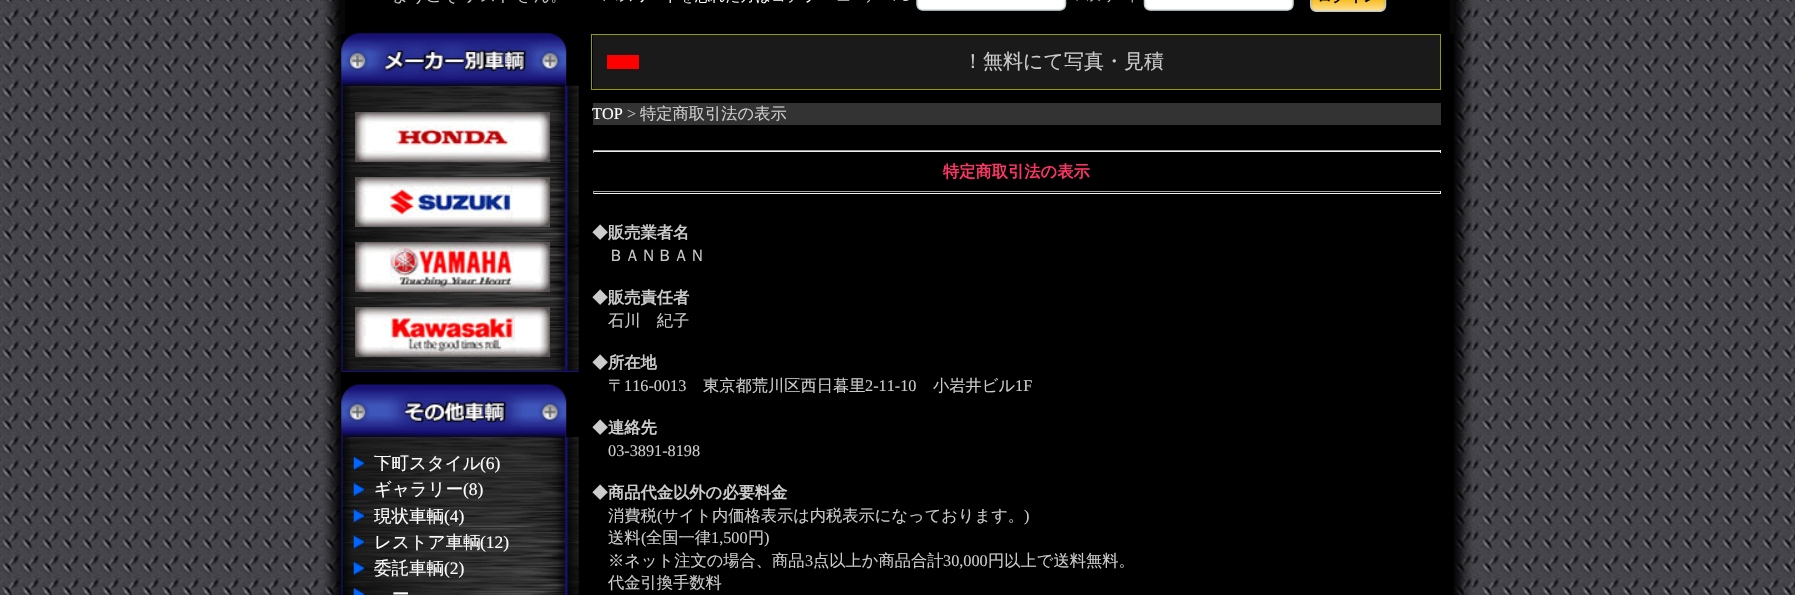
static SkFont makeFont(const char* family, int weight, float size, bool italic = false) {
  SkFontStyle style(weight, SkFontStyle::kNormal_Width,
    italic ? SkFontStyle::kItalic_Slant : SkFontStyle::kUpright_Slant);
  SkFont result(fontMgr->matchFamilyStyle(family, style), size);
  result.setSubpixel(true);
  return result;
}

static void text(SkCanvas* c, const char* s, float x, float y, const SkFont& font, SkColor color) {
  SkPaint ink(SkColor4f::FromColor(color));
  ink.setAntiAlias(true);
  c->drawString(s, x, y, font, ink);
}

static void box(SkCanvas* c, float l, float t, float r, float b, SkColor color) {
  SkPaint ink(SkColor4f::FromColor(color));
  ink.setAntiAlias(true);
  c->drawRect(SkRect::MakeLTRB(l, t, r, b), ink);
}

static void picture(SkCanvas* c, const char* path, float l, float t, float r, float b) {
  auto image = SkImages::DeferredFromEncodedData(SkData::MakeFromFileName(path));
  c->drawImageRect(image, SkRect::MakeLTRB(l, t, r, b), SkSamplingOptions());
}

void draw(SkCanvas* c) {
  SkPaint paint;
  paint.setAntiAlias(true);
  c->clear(0xffffffff);
  picture(c, "img_01.png", 0, 0, 1795, 595);
  picture(c, "img_02.png", 322, 0, 1473, 595);
  picture(c, "img_03.png", 394, 0, 1387, 12);
  box(c, 341, 34, 1454, 595, 0xff000000);
  picture(c, "img_05.png", 341, 85, 579, 371);
  picture(c, "img_04.png", 341, 33, 567, 86);
  picture(c, "img_06.png", 355, 112, 550, 162);
  picture(c, "img_07.png", 355, 177, 550, 227);
  picture(c, "img_08.png", 355, 242, 550, 292);
  picture(c, "img_09.png", 355, 307, 550, 357);
  picture(c, "img_10.png", 341, 370, 579, 372);
  picture(c, "img_11.png", 341, 384, 567, 437);
  picture(c, "img_12.png", 341, 437, 579, 595);
  picture(c, "img_13.png", 353, 457, 365, 470);
  SkFont face1 = makeFont("WenQuanYi Zen Hei", 500, 17.5f);
  text(c, "下町スタイル", 374, 469, face1, 0xffffffff);
  SkFont face2 = makeFont("Liberation Serif", 400, 17.5f);
  text(c, "(6)", 480, 469, face2, 0xffffffff);
  picture(c, "img_14.png", 353, 483, 365, 496);
  text(c, "ギャラリー", 374, 495, face1, 0xffffffff);
  text(c, "(8)", 463, 495, face2, 0xffffffff);
  picture(c, "img_15.png", 353, 509, 365, 522);
  text(c, "現状車輌", 374, 522, face1, 0xffffffff);
  text(c, "(4)", 444, 522, face2, 0xffffffff);
  picture(c, "img_16.png", 353, 535, 365, 549);
  text(c, "レストア車輌", 374, 548, face1, 0xffffffff);
  text(c, "(12)", 480, 548, face2, 0xffffffff);
  picture(c, "img_17.png", 353, 562, 365, 575);
  text(c, "委託車輌", 374, 574, face1, 0xffffffff);
  text(c, "(2)", 444, 574, face2, 0xffffffff);
  picture(c, "img_18.png", 353, 588, 365, 595);
  text(c, "ー", 392, 600, face1, 0xffffffff);
  box(c, 593, 35, 1440, 89, 0xff1a1a1a);
  box(c, 591, 34, 1441, 35, 0xff989800);
  box(c, 1440, 34, 1441, 90, 0xff989800);
  box(c, 591, 89, 1441, 90, 0xff989800);
  box(c, 591, 34, 592, 90, 0xff989800);
  box(c, 607, 55, 639, 69, 0xffff0000);
  SkFont face3 = makeFont("WenQuanYi Zen Hei", 500, 20);
  text(c, "！無料にて写真・見積", 963, 68, face3, 0xffcccccc);
  box(c, 593, 103, 1441, 125, 0xff333333);
  SkFont face4 = makeFont("Liberation Serif", 400, 16.25f);
  text(c, "TOP", 592, 119, face4, 0xffffffff);
  text(c, ">", 627, 119, face4, 0xffcccccc);
  SkFont face5 = makeFont("WenQuanYi Zen Hei", 500, 16.25f);
  text(c, "特定商取引法の表示", 640, 119, face5, 0xffcccccc);
  box(c, 593, 150, 1441, 151, 0xff9f9f9f);
  box(c, 1440, 150, 1441, 153, 0xffeeeeee);
  box(c, 593, 151, 1441, 152, 0xffeeeeee);
  box(c, 593, 150, 594, 153, 0xff9f9f9f);
  SkFont face6 = makeFont("WenQuanYi Zen Hei", 700, 16.25f);
  text(c, "特定商取引法の表示", 943, 177, face6, 0xffff3366);
  box(c, 593, 191, 1441, 192, 0xff9f9f9f);
  box(c, 1440, 191, 1441, 194, 0xffeeeeee);
  box(c, 593, 193, 1441, 194, 0xffeeeeee);
  box(c, 593, 191, 594, 194, 0xff9f9f9f);
  text(c, "◆", 592, 238, face5, 0xffcccccc);
  text(c, "販売業者名", 608, 238, face6, 0xffcccccc);
  text(c, "ＢＡＮＢＡＮ", 608, 261, face5, 0xffcccccc);
  text(c, "◆", 592, 303, face5, 0xffcccccc);
  text(c, "販売責任者", 608, 303, face6, 0xffcccccc);
  text(c, "石川　紀子", 608, 326, face5, 0xffcccccc);
  text(c, "◆", 592, 368, face5, 0xffcccccc);
  text(c, "所在地", 608, 368, face6, 0xffcccccc);
  text(c, "〒", 608, 391, face5, 0xffcccccc);
  text(c, "116-0013", 624, 391, face4, 0xffcccccc);
  text(c, "東京都荒川区西日暮里", 703, 391, face5, 0xffcccccc);
  text(c, "2-11-10", 865, 391, face4, 0xffcccccc);
  text(c, "小岩井ビル", 933, 391, face5, 0xffcccccc);
  text(c, "1F", 1015, 391, face4, 0xffcccccc);
  text(c, "◆", 592, 433, face5, 0xffcccccc);
  text(c, "連絡先", 608, 433, face6, 0xffcccccc);
  text(c, "03-3891-8198", 608, 456, face4, 0xffcccccc);
  text(c, "◆", 592, 498, face5, 0xffcccccc);
  text(c, "商品代金以外の必要料金", 608, 498, face6, 0xffcccccc);
  text(c, "消費税", 608, 521, face5, 0xffcccccc);
  text(c, "(", 657, 521, face4, 0xffcccccc);
  text(c, "サイト内価格表示は内税表示になっております。", 662, 521, face5, 0xffcccccc);
  text(c, ")", 1024, 521, face4, 0xffcccccc);
  text(c, "送料", 608, 543, face5, 0xffcccccc);
  text(c, "(", 641, 543, face4, 0xffcccccc);
  text(c, "全国一律", 646, 543, face5, 0xffcccccc);
  text(c, "1,500", 711, 543, face4, 0xffcccccc);
  text(c, "円", 748, 543, face5, 0xffcccccc);
  text(c, ")", 764, 543, face4, 0xffcccccc);
  text(c, "※ネット注文の場合、商品", 608, 566, face5, 0xffcccccc);
  text(c, "3", 805, 566, face4, 0xffcccccc);
  text(c, "点以上か商品合計", 813, 566, face5, 0xffcccccc);
  text(c, "30,000", 943, 566, face4, 0xffcccccc);
  text(c, "円以上で送料無料。", 988, 566, face5, 0xffcccccc);
  text(c, "代金引換手数料", 608, 588, face5, 0xffcccccc);
}
